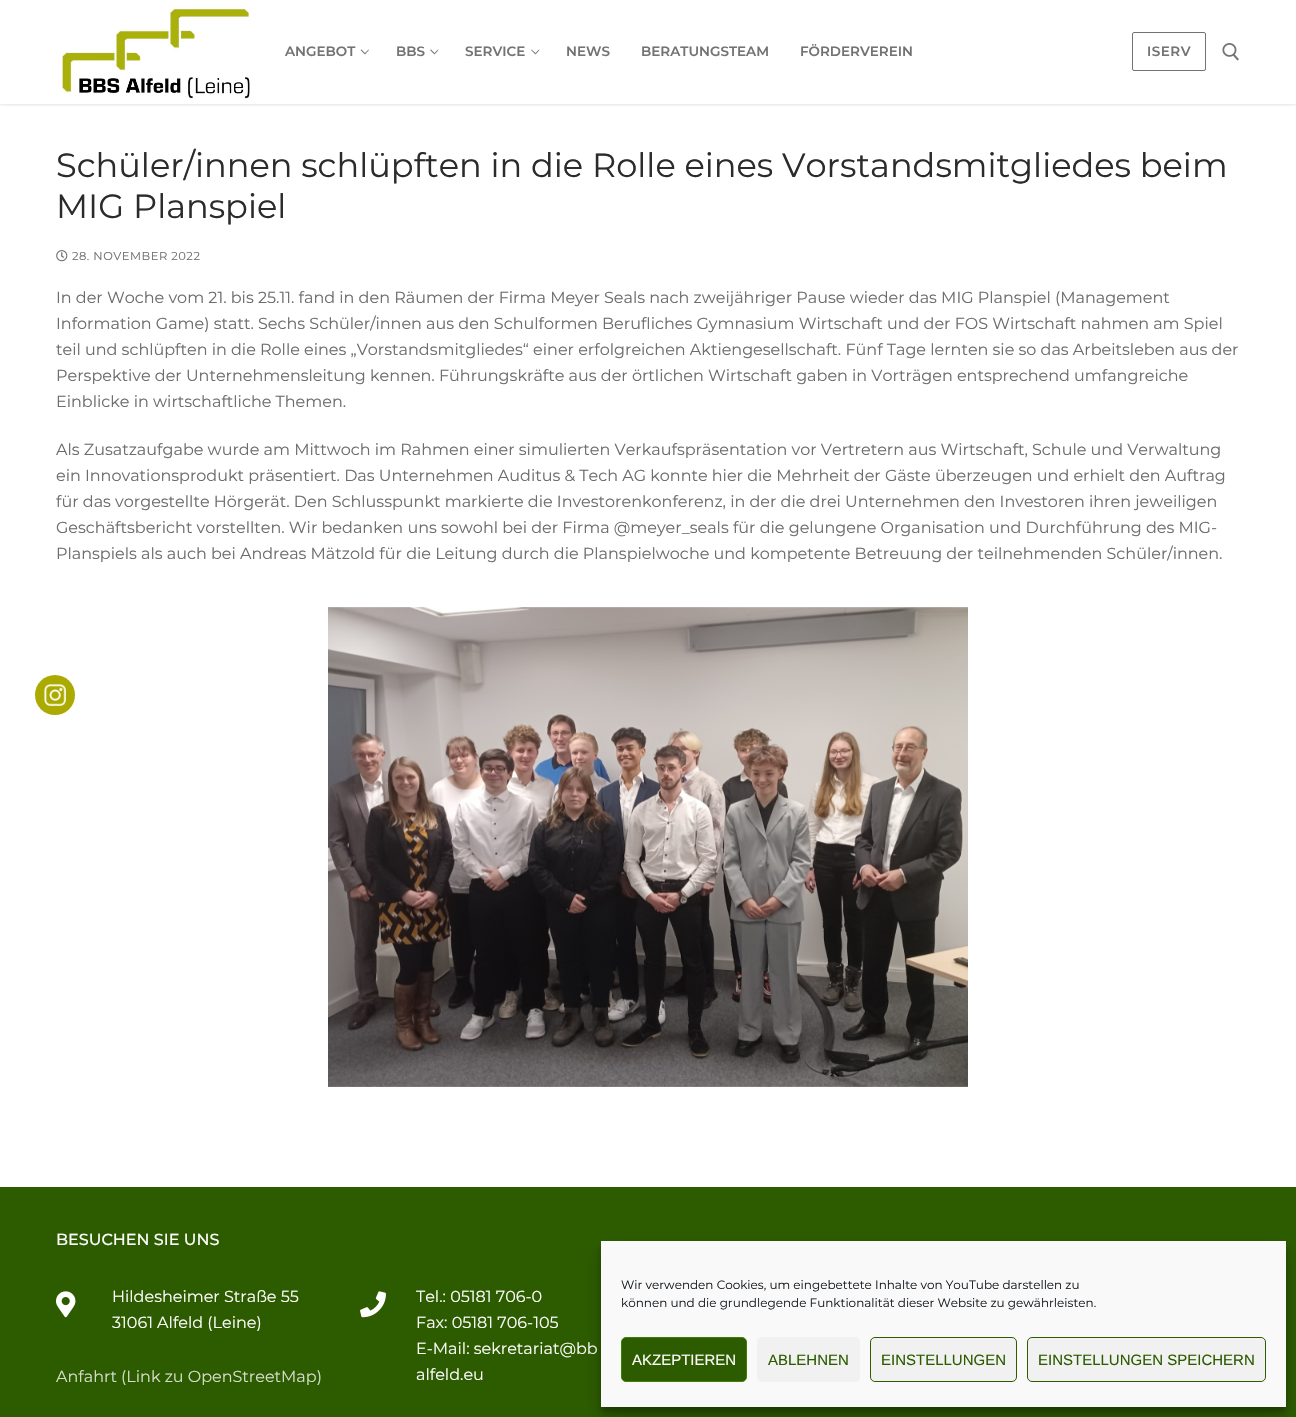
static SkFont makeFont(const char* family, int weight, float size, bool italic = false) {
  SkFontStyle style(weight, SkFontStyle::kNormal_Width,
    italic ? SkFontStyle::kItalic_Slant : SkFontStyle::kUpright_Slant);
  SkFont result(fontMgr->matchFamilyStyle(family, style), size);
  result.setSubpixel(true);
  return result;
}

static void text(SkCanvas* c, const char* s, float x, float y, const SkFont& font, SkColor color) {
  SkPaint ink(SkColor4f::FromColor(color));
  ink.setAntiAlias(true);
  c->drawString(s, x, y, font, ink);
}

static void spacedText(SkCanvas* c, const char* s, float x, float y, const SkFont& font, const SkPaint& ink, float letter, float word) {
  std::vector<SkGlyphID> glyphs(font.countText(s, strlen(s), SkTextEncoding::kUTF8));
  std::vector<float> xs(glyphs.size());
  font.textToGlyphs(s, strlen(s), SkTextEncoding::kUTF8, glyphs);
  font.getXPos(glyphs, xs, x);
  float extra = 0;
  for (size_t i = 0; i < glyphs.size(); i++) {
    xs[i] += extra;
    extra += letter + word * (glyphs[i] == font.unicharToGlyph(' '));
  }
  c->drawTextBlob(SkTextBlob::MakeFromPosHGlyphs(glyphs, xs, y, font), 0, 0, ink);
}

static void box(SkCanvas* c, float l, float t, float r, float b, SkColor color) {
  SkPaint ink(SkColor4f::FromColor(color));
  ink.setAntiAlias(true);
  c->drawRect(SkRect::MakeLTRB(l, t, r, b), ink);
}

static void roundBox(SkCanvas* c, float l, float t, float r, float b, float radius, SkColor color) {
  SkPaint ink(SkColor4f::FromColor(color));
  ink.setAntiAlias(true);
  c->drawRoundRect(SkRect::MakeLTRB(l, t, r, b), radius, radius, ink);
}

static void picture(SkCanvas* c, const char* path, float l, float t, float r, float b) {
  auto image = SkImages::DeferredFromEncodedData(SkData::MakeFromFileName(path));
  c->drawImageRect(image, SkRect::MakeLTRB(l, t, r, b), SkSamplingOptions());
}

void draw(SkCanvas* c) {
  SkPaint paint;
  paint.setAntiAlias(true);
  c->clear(0xffffffff);
  paint.setColor(0xffabaa00);
  c->drawCircle(55, 695, 20, paint);
  picture(c, "img_01.png", 44, 684, 66, 706);
  c->save();
  c->clipRect(SkRect::MakeLTRB(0, 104, 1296, 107));
  paint.setColor(0xffe1e5ea);
  paint.setMaskFilter(SkMaskFilter::MakeBlur(kNormal_SkBlurStyle, 1));
  c->drawRect(SkRect::MakeLTRB(0, 1, 1296, 105), paint);
  paint.setMaskFilter(nullptr);
  c->restore();
  picture(c, "img_02.png", 60, 5, 251, 99);
  SkFont face1 = makeFont("Montserrat", 600, 13.5f);
  text(c, "ANGEBOT", 285, 56, face1, 0xff737373);
  paint.setColor(0xff737373);
  c->drawPath(SkPathBuilder().moveTo(365, 54.5f).lineTo(360.5f, 50).lineTo(361.5f, 49.5f).lineTo(365, 53).close().moveTo(369, 50).lineTo(365, 54.5f).lineTo(365, 53).lineTo(368.5f, 49.5f).close().detach(), paint);
  text(c, "BBS", 396, 56, face1, 0xff737373);
  c->drawPath(SkPathBuilder().moveTo(434.5f, 54.5f).lineTo(430, 50).lineTo(431, 49.5f).lineTo(434.5f, 53).close().detach(), paint);
  paint.setColor(0x8c000000);
  c->drawPath(SkPathBuilder().moveTo(438.5f, 50).lineTo(434.5f, 54.5f).lineTo(434.5f, 53).lineTo(438, 49.5f).close().detach(), paint);
  text(c, "SERVICE", 465, 56, face1, 0xff737373);
  paint.setColor(0xff737373);
  c->drawPath(SkPathBuilder().moveTo(535.5f, 54.5f).lineTo(531, 50).lineTo(531.5f, 49.5f).lineTo(535.5f, 53).close().detach(), paint);
  paint.setColor(0x8c000000);
  c->drawPath(SkPathBuilder().moveTo(539.5f, 50).lineTo(535.5f, 54.5f).lineTo(535.5f, 53).lineTo(539, 49.5f).close().detach(), paint);
  text(c, "NEWS", 566, 56, face1, 0xff737373);
  text(c, "BERATUNGSTEAM", 641, 56, face1, 0xff737373);
  text(c, "FÖRDERVEREIN", 800, 56, face1, 0xff737373);
  paint.setStyle(SkPaint::kStroke_Style);
  paint.setStrokeWidth(1);
  paint.setColor(0xff737373);
  c->drawRoundRect(SkRect::MakeLTRB(1132.5f, 32.5f, 1205.5f, 70.5f), 1.5f, 1.5f, paint);
  paint.setStyle(SkPaint::kFill_Style);
  spacedText(c, "ISERV", 1147, 56, face1, paint, 0.5f, 0);
  picture(c, "img_03.png", 1222, 43, 1239, 61);
  SkFont face2 = makeFont("Montserrat", 400, 33.6f);
  text(c, "Schüler/innen schlüpften in die Rolle eines Vorstandsmitgliedes beim", 56, 177, face2, 0xff2b2b2b);
  text(c, "MIG Planspiel", 56, 218, face2, 0xff2b2b2b);
  picture(c, "img_04.png", 56, 250, 68, 262);
  SkFont face3 = makeFont("Montserrat", 400, 11.5f);
  paint.setColor(0xff6d6d6d);
  spacedText(c, "28. NOVEMBER 2022", 72, 260, face3, paint, 0.5f, 0);
  SkFont face4 = makeFont("Montserrat", 400, 16);
  text(c, "In der Woche vom 21. bis 25.11. fand in den Räumen der Firma Meyer Seals nach zweijähriger Pause wieder das MIG Planspiel (Management", 56, 303, face4, 0xff6d6d6d);
  text(c, "Information Game) statt. Sechs Schüler/innen aus den Schulformen Berufliches Gymnasium Wirtschaft und der FOS Wirtschaft nahmen am Spiel", 56, 329, face4, 0xff6d6d6d);
  text(c, "teil und schlüpften in die Rolle eines „Vorstandsmitgliedes“ einer erfolgreichen Aktiengesellschaft. Fünf Tage lernten sie so das Arbeitsleben aus der", 56, 355, face4, 0xff6d6d6d);
  text(c, "Perspektive der Unternehmensleitung kennen. Führungskräfte aus der örtlichen Wirtschaft gaben in Vorträgen entsprechend umfangreiche", 56, 381, face4, 0xff6d6d6d);
  text(c, "Einblicke in wirtschaftliche Themen.", 56, 407, face4, 0xff6d6d6d);
  text(c, "Als Zusatzaufgabe wurde am Mittwoch im Rahmen einer simulierten Verkaufspräsentation vor Vertretern aus Wirtschaft, Schule und Verwaltung", 56, 455, face4, 0xff6d6d6d);
  text(c, "ein Innovationsprodukt präsentiert. Das Unternehmen Auditus & Tech AG konnte hier die Mehrheit der Gäste überzeugen und erhielt den Auftrag", 56, 481, face4, 0xff6d6d6d);
  text(c, "für das vorgestellte Hörgerät. Den Schlusspunkt markierte die Investorenkonferenz, in der die drei Unternehmen den Investoren ihren jeweiligen", 56, 507, face4, 0xff6d6d6d);
  text(c, "Geschäftsbericht vorstellten. Wir bedanken uns sowohl bei der Firma @meyer_seals für die gelungene Organisation und Durchführung des MIG-", 56, 533, face4, 0xff6d6d6d);
  text(c, "Planspiels als auch bei Andreas Mätzold für die Leitung durch die Planspielwoche und kompetente Betreuung der teilnehmenden Schüler/innen.", 56, 559, face4, 0xff6d6d6d);
  picture(c, "img_05.png", 328, 607, 968, 1087);
  box(c, 0, 1187, 1296, 1417, 0xff2d5c00);
  SkFont face5 = makeFont("Montserrat", 500, 16);
  text(c, "BESUCHEN SIE UNS", 56, 1245, face5, 0xfffdfdfc);
  picture(c, "img_06.png", 56, 1291, 76, 1318);
  text(c, "Hildesheimer Straße 55", 112, 1302, face4, 0xfffdfdfc);
  text(c, "31061 Alfeld (Leine)", 112, 1328, face4, 0xfffdfdfc);
  text(c, "Anfahrt (Link zu OpenStreetMap)", 56, 1382, face4, 0xffd3ddc9);
  picture(c, "img_07.png", 360, 1291, 386, 1318);
  text(c, "Tel.: 05181 706-0", 416, 1302, face4, 0xfffdfdfc);
  text(c, "Fax: 05181 706-105", 416, 1328, face4, 0xfffdfdfc);
  text(c, "E-Mail: sekretariat@bb", 416, 1354, face4, 0xfffdfdfc);
  text(c, "alfeld.eu", 416, 1380, face4, 0xfffdfdfc);
  paint.setColor(0x3b000000);
  paint.setMaskFilter(SkMaskFilter::MakeBlur(kNormal_SkBlurStyle, 3));
  c->drawRect(SkRect::MakeLTRB(601, 1247, 1286, 1413), paint);
  paint.setMaskFilter(nullptr);
  paint.setColor(0x30000000);
  paint.setMaskFilter(SkMaskFilter::MakeBlur(kNormal_SkBlurStyle, 10));
  c->drawRect(SkRect::MakeLTRB(601, 1251, 1286, 1417), paint);
  paint.setMaskFilter(nullptr);
  box(c, 601, 1241, 1286, 1407, 0xfff9f9f9);
  SkFont face6 = makeFont("Montserrat", 400, 12);
  text(c, "Wir verwenden Cookies, um eingebettete Inhalte von YouTube darstellen zu", 621, 1289, face6, 0xff191e23);
  text(c, "können und die grundlegende Funktionalität dieser Website zu gewährleisten.", 621, 1307, face6, 0xff191e23);
  paint.setColor(0xff2d5c00);
  c->drawRoundRect(SkRect::MakeLTRB(621.5f, 1337.5f, 746.5f, 1381.5f), 4.5f, 4.5f, paint);
  paint.setStyle(SkPaint::kStroke_Style);
  paint.setColor(0xff407e04);
  c->drawRoundRect(SkRect::MakeLTRB(621.5f, 1337.5f, 746.5f, 1381.5f), 4.5f, 4.5f, paint);
  SkFont face7 = makeFont("Liberation Sans", 400, 15);
  text(c, "AKZEPTIEREN", 632, 1365, face7, 0xfffdfdfc);
  roundBox(c, 757, 1337, 860, 1382, 5, 0xfff1f1f1);
  text(c, "ABLEHNEN", 768, 1365, face7, 0xff2d5c00);
  paint.setStyle(SkPaint::kFill_Style);
  paint.setColor(0xfff1f1f1);
  c->drawRoundRect(SkRect::MakeLTRB(870.5f, 1337.5f, 1016.5f, 1381.5f), 4.5f, 4.5f, paint);
  paint.setStyle(SkPaint::kStroke_Style);
  paint.setColor(0xff2d5c00);
  c->drawRoundRect(SkRect::MakeLTRB(870.5f, 1337.5f, 1016.5f, 1381.5f), 4.5f, 4.5f, paint);
  text(c, "EINSTELLUNGEN", 881, 1365, face7, 0xff2d5c00);
  paint.setStyle(SkPaint::kFill_Style);
  paint.setColor(0xfff1f1f1);
  c->drawRoundRect(SkRect::MakeLTRB(1027.5f, 1337.5f, 1265.5f, 1381.5f), 4.5f, 4.5f, paint);
  paint.setStyle(SkPaint::kStroke_Style);
  paint.setColor(0xff2d5c00);
  c->drawRoundRect(SkRect::MakeLTRB(1027.5f, 1337.5f, 1265.5f, 1381.5f), 4.5f, 4.5f, paint);
  text(c, "EINSTELLUNGEN SPEICHERN", 1038, 1365, face7, 0xff2d5c00);
}
